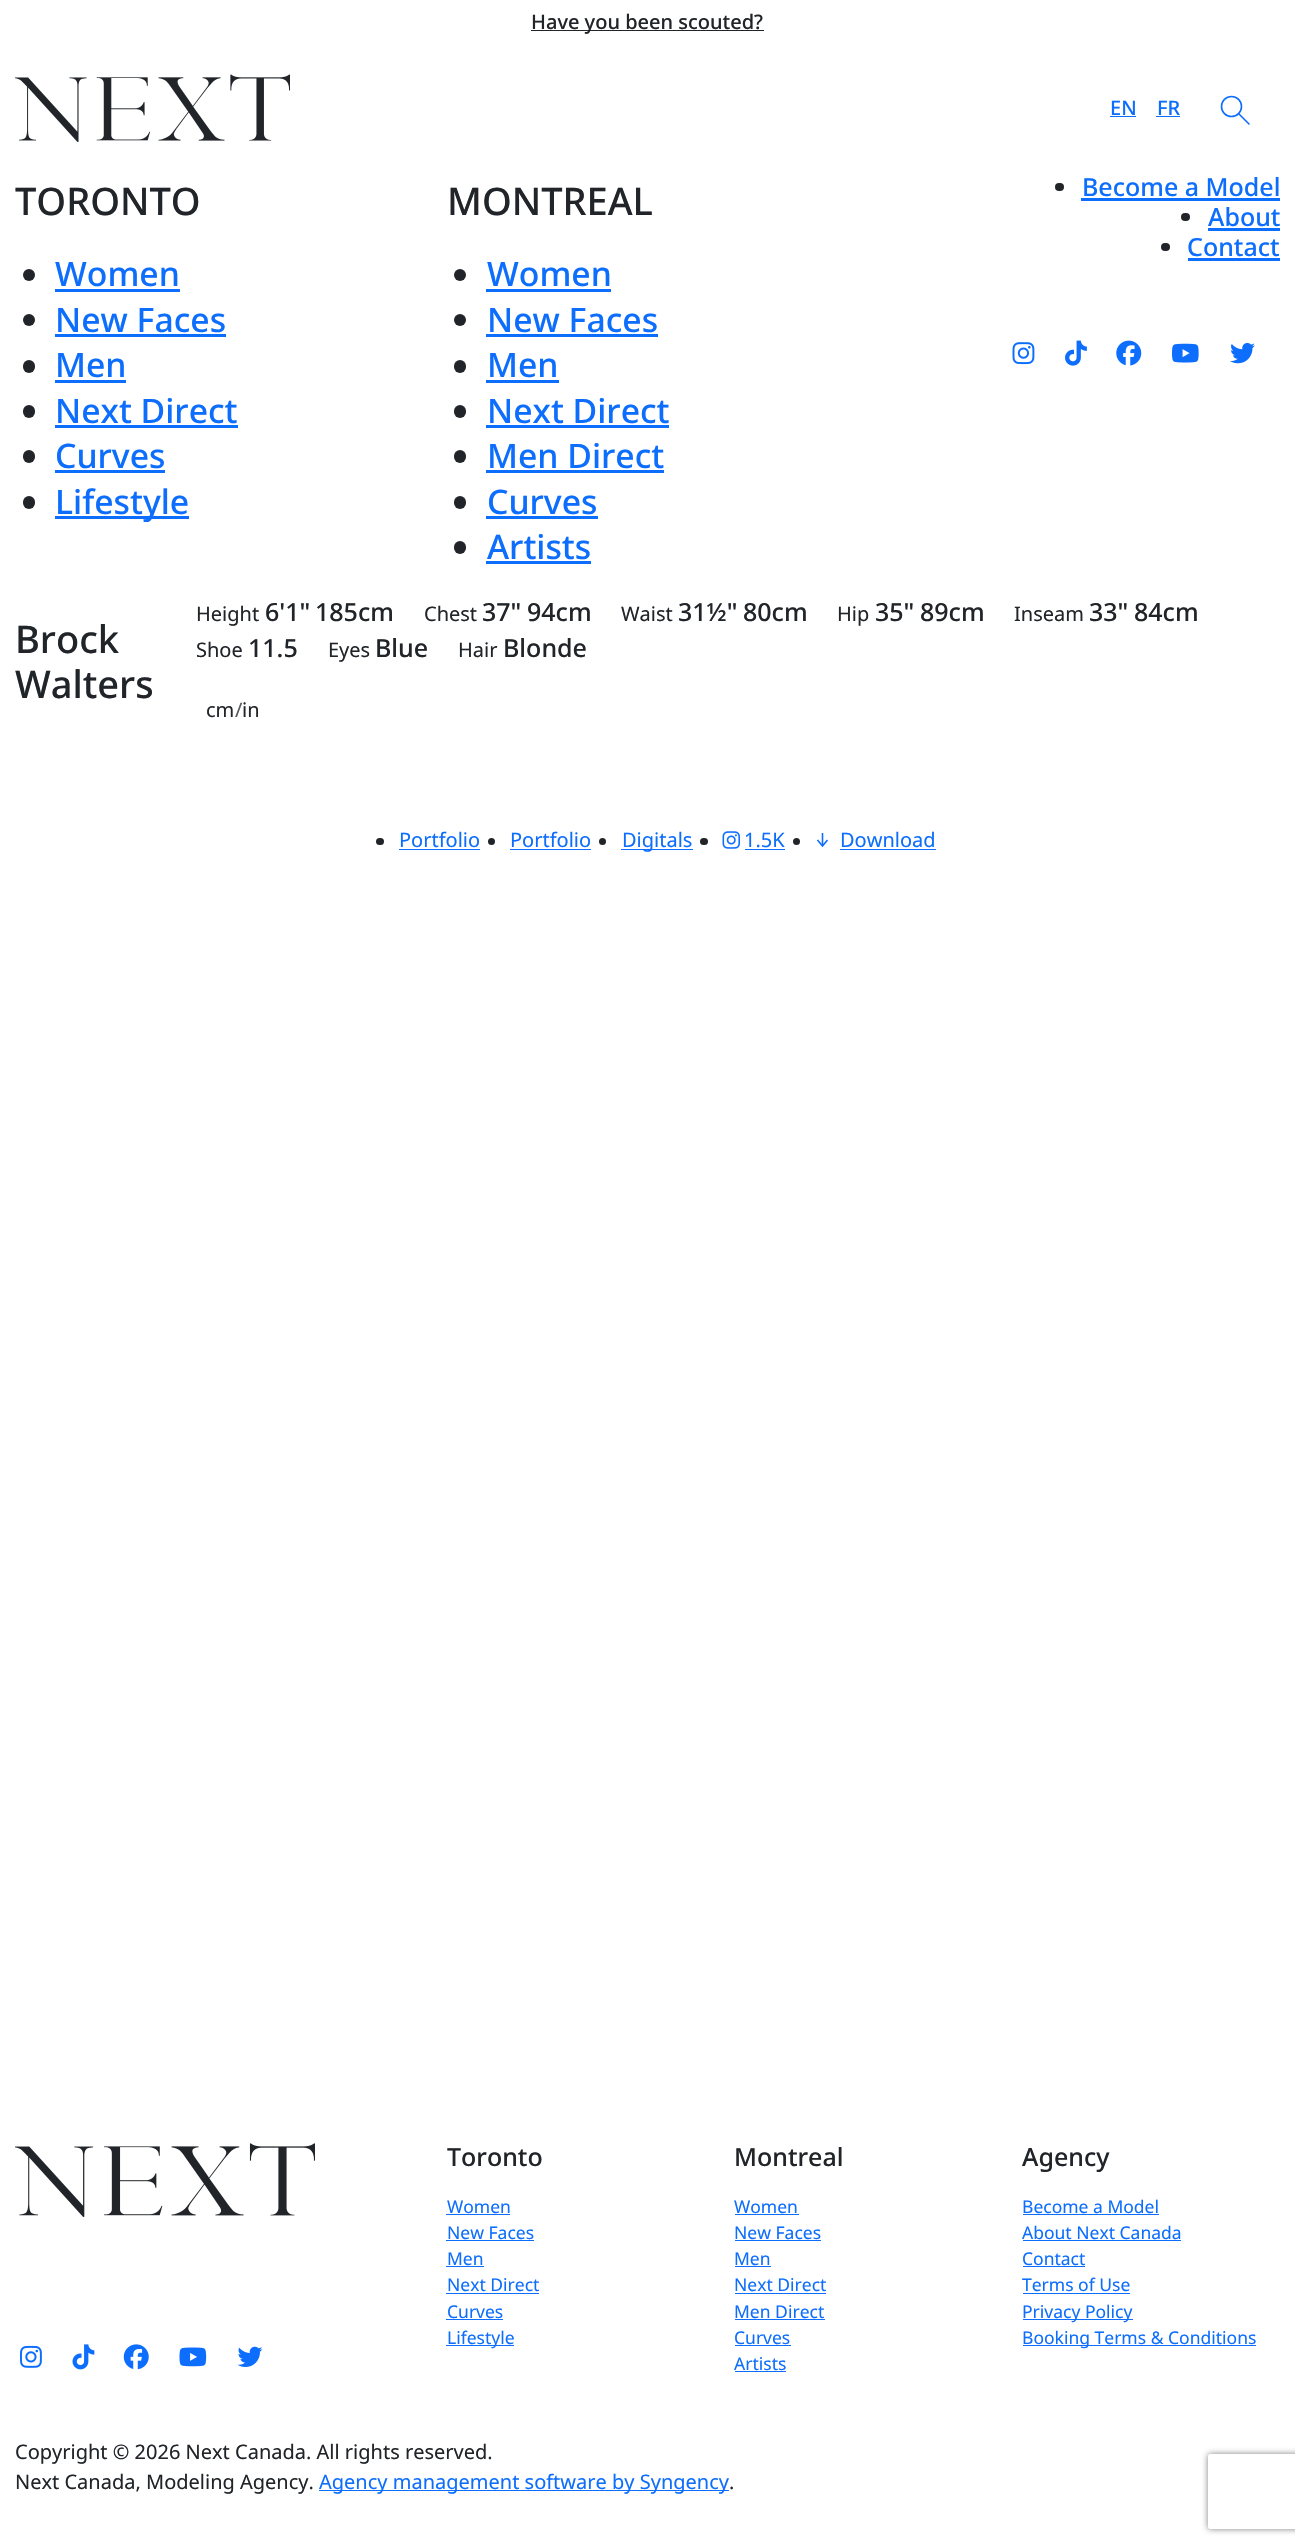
static SkFont makeFont(const char* family, int weight, float size, bool italic = false) {
  SkFontStyle style(weight, SkFontStyle::kNormal_Width,
    italic ? SkFontStyle::kItalic_Slant : SkFontStyle::kUpright_Slant);
  SkFont result(fontMgr->matchFamilyStyle(family, style), size);
  result.setSubpixel(true);
  return result;
}

static void text(SkCanvas* c, const char* s, float x, float y, const SkFont& font, SkColor color) {
  SkPaint ink(SkColor4f::FromColor(color));
  ink.setAntiAlias(true);
  c->drawString(s, x, y, font, ink);
}

static void box(SkCanvas* c, float l, float t, float r, float b, SkColor color) {
  SkPaint ink(SkColor4f::FromColor(color));
  ink.setAntiAlias(true);
  c->drawRect(SkRect::MakeLTRB(l, t, r, b), ink);
}

static void roundBox(SkCanvas* c, float l, float t, float r, float b, float radius, SkColor color) {
  SkPaint ink(SkColor4f::FromColor(color));
  ink.setAntiAlias(true);
  c->drawRoundRect(SkRect::MakeLTRB(l, t, r, b), radius, radius, ink);
}

static void picture(SkCanvas* c, const char* path, float l, float t, float r, float b) {
  auto image = SkImages::DeferredFromEncodedData(SkData::MakeFromFileName(path));
  c->drawImageRect(image, SkRect::MakeLTRB(l, t, r, b), SkSamplingOptions());
}

void draw(SkCanvas* c) {
  SkPaint paint;
  paint.setAntiAlias(true);
  c->clear(0xffffffff);
  box(c, 531, 30, 764, 31, 0xff212529);
  SkFont face1 = makeFont("Noto Sans", 500, 20);
  text(c, "Have you been scouted?", 531, 29, face1, 0xff212529);
  picture(c, "img_01.png", 15, 74, 290, 142);
  text(c, "EN", 1110, 115, face1, 0xff0d6efd);
  box(c, 1110, 116, 1136, 117, 0xff0d6efd);
  text(c, "FR", 1157, 115, face1, 0xff0d6efd);
  box(c, 1156, 116, 1180, 117, 0xff0d6efd);
  paint.setStyle(SkPaint::kStroke_Style);
  paint.setStrokeWidth(1.6f);
  paint.setColor(0xff0d6efd);
  c->drawCircle(1231.5f, 106.5f, 10, paint);
  paint.setStrokeCap(SkPaint::kRound_Cap);
  c->drawPath(SkPathBuilder().moveTo(1238.5f, 113.5f).lineTo(1249, 124).detach(), paint);
  SkFont face2 = makeFont("Noto Sans", 500, 38);
  text(c, "TORONTO", 15, 215, face2, 0xff212529);
  paint.setStyle(SkPaint::kFill_Style);
  paint.setColor(0xff212529);
  c->drawCircle(29, 275, 6, paint);
  SkFont face3 = makeFont("Noto Sans", 500, 33.75f);
  text(c, "Women", 55, 286, face3, 0xff0d6efd);
  box(c, 55, 289, 180, 292, 0xff0d6efd);
  c->drawCircle(29, 320, 6, paint);
  text(c, "New Faces", 55, 332, face3, 0xff0d6efd);
  box(c, 55, 334, 226, 337, 0xff0d6efd);
  roundBox(c, 23, 360, 35, 373, 6, 0xff212529);
  text(c, "Men", 55, 377, face3, 0xff0d6efd);
  box(c, 55, 380, 126, 383, 0xff0d6efd);
  roundBox(c, 23, 405, 35, 418, 6, 0xff212529);
  text(c, "Next Direct", 55, 423, face3, 0xff0d6efd);
  box(c, 55, 425, 238, 428, 0xff0d6efd);
  roundBox(c, 23, 450, 35, 463, 6, 0xff212529);
  text(c, "Curves", 55, 468, face3, 0xff0d6efd);
  box(c, 55, 470, 165, 473, 0xff0d6efd);
  roundBox(c, 23, 496, 35, 509, 6, 0xff212529);
  box(c, 55, 516, 189, 519, 0xff0d6efd);
  text(c, "Lifestyle", 55, 514, face3, 0xff0d6efd);
  text(c, "MONTREAL", 447, 215, face2, 0xff212529);
  c->drawCircle(460, 275, 6, paint);
  text(c, "Women", 487, 286, face3, 0xff0d6efd);
  box(c, 486, 289, 611, 292, 0xff0d6efd);
  c->drawCircle(460, 320, 6, paint);
  text(c, "New Faces", 487, 332, face3, 0xff0d6efd);
  box(c, 486, 334, 658, 337, 0xff0d6efd);
  roundBox(c, 454, 360, 466, 373, 6, 0xff212529);
  text(c, "Men", 487, 377, face3, 0xff0d6efd);
  box(c, 486, 380, 559, 383, 0xff0d6efd);
  roundBox(c, 454, 405, 466, 418, 6, 0xff212529);
  text(c, "Next Direct", 487, 423, face3, 0xff0d6efd);
  box(c, 486, 425, 669, 428, 0xff0d6efd);
  roundBox(c, 454, 450, 466, 463, 6, 0xff212529);
  text(c, "Men Direct", 487, 468, face3, 0xff0d6efd);
  box(c, 486, 470, 664, 473, 0xff0d6efd);
  roundBox(c, 454, 496, 466, 509, 6, 0xff212529);
  text(c, "Curves", 487, 514, face3, 0xff0d6efd);
  box(c, 486, 516, 598, 519, 0xff0d6efd);
  roundBox(c, 454, 541, 466, 554, 6, 0xff212529);
  text(c, "Artists", 487, 559, face3, 0xff0d6efd);
  box(c, 486, 561, 591, 564, 0xff0d6efd);
  roundBox(c, 1055, 183, 1064, 191, 4, 0xff212529);
  SkFont face4 = makeFont("Noto Sans", 500, 25);
  text(c, "Become a Model", 1082, 196, face4, 0xff0d6efd);
  box(c, 1081, 198, 1280, 201, 0xff0d6efd);
  roundBox(c, 1181, 213, 1190, 221, 4, 0xff212529);
  text(c, "About", 1208, 226, face4, 0xff0d6efd);
  box(c, 1208, 228, 1280, 231, 0xff0d6efd);
  roundBox(c, 1161, 243, 1170, 251, 4, 0xff212529);
  text(c, "Contact", 1187, 256, face4, 0xff0d6efd);
  box(c, 1188, 258, 1280, 261, 0xff0d6efd);
  picture(c, "img_02.png", 1012, 342, 1035, 365);
  picture(c, "img_03.png", 1065, 340, 1087, 366);
  picture(c, "img_04.png", 1116, 340, 1142, 366);
  picture(c, "img_05.png", 1172, 343, 1199, 363);
  picture(c, "img_06.png", 1230, 343, 1255, 364);
  text(c, "Brock", 15, 653, face2, 0xff212529);
  text(c, "Walters", 15, 698, face2, 0xff212529);
  SkFont face5 = makeFont("Noto Sans", 400, 20);
  text(c, "Height", 196, 621, face5, 0xff212529);
  text(c, "6'1\"", 265, 621, face4, 0xff212529);
  text(c, "185cm", 315, 621, face4, 0xff212529);
  text(c, "Chest", 424, 621, face5, 0xff212529);
  text(c, "37\"", 482, 621, face4, 0xff212529);
  text(c, "94cm", 527, 621, face4, 0xff212529);
  text(c, "Waist", 621, 621, face5, 0xff212529);
  text(c, "31½\"", 678, 621, face4, 0xff212529);
  text(c, "80cm", 743, 621, face4, 0xff212529);
  text(c, "Hip", 837, 621, face5, 0xff212529);
  text(c, "35\"", 875, 621, face4, 0xff212529);
  text(c, "89cm", 920, 621, face4, 0xff212529);
  text(c, "Inseam", 1014, 621, face5, 0xff212529);
  text(c, "33\"", 1089, 621, face4, 0xff212529);
  text(c, "84cm", 1134, 621, face4, 0xff212529);
  text(c, "Shoe", 196, 657, face5, 0xff212529);
  text(c, "11.5", 248, 657, face4, 0xff212529);
  text(c, "Eyes", 328, 657, face5, 0xff212529);
  text(c, "Blue", 375, 657, face4, 0xff212529);
  text(c, "Hair", 458, 657, face5, 0xff212529);
  text(c, "Blonde", 503, 657, face4, 0xff212529);
  text(c, "cm", 206, 717, face5, 0xff212529);
  text(c, "/", 235, 717, face5, 0xff595c5f);
  text(c, "in", 242, 717, face5, 0xff212529);
  roundBox(c, 376, 838, 384, 845, 3.5f, 0xff212529);
  text(c, "Portfolio", 399, 847, face5, 0xff0d6efd);
  box(c, 399, 849, 480, 850, 0xff0d6efd);
  c->drawCircle(491.5f, 841.5f, 3.5f, paint);
  text(c, "Portfolio", 510, 847, face5, 0xff0d6efd);
  box(c, 510, 849, 591, 850, 0xff0d6efd);
  c->drawCircle(602.5f, 841.5f, 3.5f, paint);
  box(c, 621, 849, 693, 850, 0xff0d6efd);
  text(c, "Digitals", 622, 847, face5, 0xff0d6efd);
  roundBox(c, 700, 838, 708, 845, 3.5f, 0xff212529);
  picture(c, "img_07.png", 722, 831, 740, 849);
  text(c, "1.5K", 744, 847, face5, 0xff0d6efd);
  box(c, 745, 849, 785, 850, 0xff0d6efd);
  c->drawCircle(796.5f, 841.5f, 3.5f, paint);
  paint.setStyle(SkPaint::kStroke_Style);
  paint.setStrokeCap(SkPaint::kButt_Cap);
  paint.setColor(0xff0d6efd);
  c->drawPath(SkPathBuilder().moveTo(827.5f, 840).lineTo(822.5f, 846).lineTo(817.5f, 840).detach(), paint);
  c->save();
  c->clipRect(SkRect::MakeLTRB(815, 833, 830, 848));
  c->drawPath(SkPathBuilder().moveTo(822.5f, 832.5f).lineTo(822.5f, 846).detach(), paint);
  c->restore();
  text(c, "Download", 840, 847, face5, 0xff0d6efd);
  box(c, 840, 849, 936, 850, 0xff0d6efd);
  picture(c, "img_08.png", 15, 2143, 315, 2217);
  picture(c, "img_09.png", 20, 2345, 42, 2368);
  picture(c, "img_10.png", 72, 2344, 95, 2370);
  picture(c, "img_11.png", 123, 2344, 149, 2370);
  picture(c, "img_12.png", 179, 2347, 207, 2367);
  picture(c, "img_13.png", 237, 2346, 263, 2367);
  text(c, "Toronto", 447, 2166, face4, 0xff212529);
  SkFont face6 = makeFont("Noto Sans", 400, 17.5f);
  text(c, "Women", 447, 2213, face6, 0xff0d6efd);
  box(c, 446, 2214, 510, 2215, 0xff0d6efd);
  text(c, "New Faces", 447, 2239, face6, 0xff0d6efd);
  box(c, 446, 2240, 534, 2241, 0xff0d6efd);
  text(c, "Men", 447, 2265, face6, 0xff0d6efd);
  box(c, 446, 2266, 484, 2267, 0xff0d6efd);
  text(c, "Next Direct", 447, 2291, face6, 0xff0d6efd);
  box(c, 446, 2293, 539, 2294, 0xff0d6efd);
  text(c, "Curves", 447, 2318, face6, 0xff0d6efd);
  box(c, 446, 2319, 503, 2320, 0xff0d6efd);
  box(c, 446, 2345, 514, 2346, 0xff0d6efd);
  text(c, "Lifestyle", 447, 2344, face6, 0xff0d6efd);
  text(c, "Montreal", 734, 2166, face4, 0xff212529);
  text(c, "Women", 734, 2213, face6, 0xff0d6efd);
  box(c, 735, 2214, 799, 2215, 0xff0d6efd);
  text(c, "New Faces", 734, 2239, face6, 0xff0d6efd);
  box(c, 735, 2240, 821, 2241, 0xff0d6efd);
  text(c, "Men", 734, 2265, face6, 0xff0d6efd);
  box(c, 735, 2266, 771, 2267, 0xff0d6efd);
  text(c, "Next Direct", 734, 2291, face6, 0xff0d6efd);
  box(c, 735, 2293, 826, 2294, 0xff0d6efd);
  text(c, "Men Direct", 734, 2318, face6, 0xff0d6efd);
  box(c, 735, 2319, 825, 2320, 0xff0d6efd);
  text(c, "Curves", 734, 2344, face6, 0xff0d6efd);
  box(c, 735, 2345, 791, 2346, 0xff0d6efd);
  text(c, "Artists", 734, 2370, face6, 0xff0d6efd);
  box(c, 735, 2371, 786, 2372, 0xff0d6efd);
  text(c, "Agency", 1022, 2166, face4, 0xff212529);
  text(c, "Become a Model", 1022, 2213, face6, 0xff0d6efd);
  box(c, 1023, 2214, 1159, 2215, 0xff0d6efd);
  text(c, "About Next Canada", 1022, 2239, face6, 0xff0d6efd);
  box(c, 1023, 2240, 1181, 2241, 0xff0d6efd);
  text(c, "Contact", 1022, 2265, face6, 0xff0d6efd);
  box(c, 1023, 2266, 1085, 2267, 0xff0d6efd);
  text(c, "Terms of Use", 1022, 2291, face6, 0xff0d6efd);
  box(c, 1023, 2293, 1130, 2294, 0xff0d6efd);
  box(c, 1023, 2319, 1133, 2320, 0xff0d6efd);
  text(c, "Privacy Policy", 1022, 2318, face6, 0xff0d6efd);
  box(c, 1023, 2345, 1256, 2346, 0xff0d6efd);
  text(c, "Booking Terms & Conditions", 1022, 2344, face6, 0xff0d6efd);
  text(c, "Copyright © 2026 Next Canada. All rights reserved.", 15, 2459, face5, 0xff212529);
  text(c, "Next Canada, Modeling Agency.", 15, 2489, face5, 0xff212529);
  box(c, 319, 2490, 729, 2491, 0xff0d6efd);
  text(c, "Agency management software by Syngency", 319, 2489, face5, 0xff0d6efd);
  text(c, ".", 729, 2489, face5, 0xff212529);
  c->save();
  c->clipPath(SkPathBuilder(SkPathFillType::kEvenOdd).moveTo(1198, 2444).lineTo(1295, 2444).lineTo(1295, 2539).lineTo(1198, 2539).close().moveTo(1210.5f, 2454).lineTo(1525.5f, 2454).cubicTo(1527, 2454, 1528, 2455, 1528, 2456.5f).lineTo(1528, 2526.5f).cubicTo(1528, 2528, 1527, 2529, 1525.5f, 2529).lineTo(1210.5f, 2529).cubicTo(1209, 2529, 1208, 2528, 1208, 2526.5f).lineTo(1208, 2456.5f).cubicTo(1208, 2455, 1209, 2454, 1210.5f, 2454).close().detach(), true);
  paint.setStyle(SkPaint::kFill_Style);
  paint.setColor(0xff808080);
  paint.setMaskFilter(SkMaskFilter::MakeBlur(kNormal_SkBlurStyle, 3));
  c->drawRoundRect(SkRect::MakeLTRB(1208, 2454, 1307, 2529), 2.5f, 2.5f, paint);
  paint.setMaskFilter(nullptr);
  c->restore();
}
